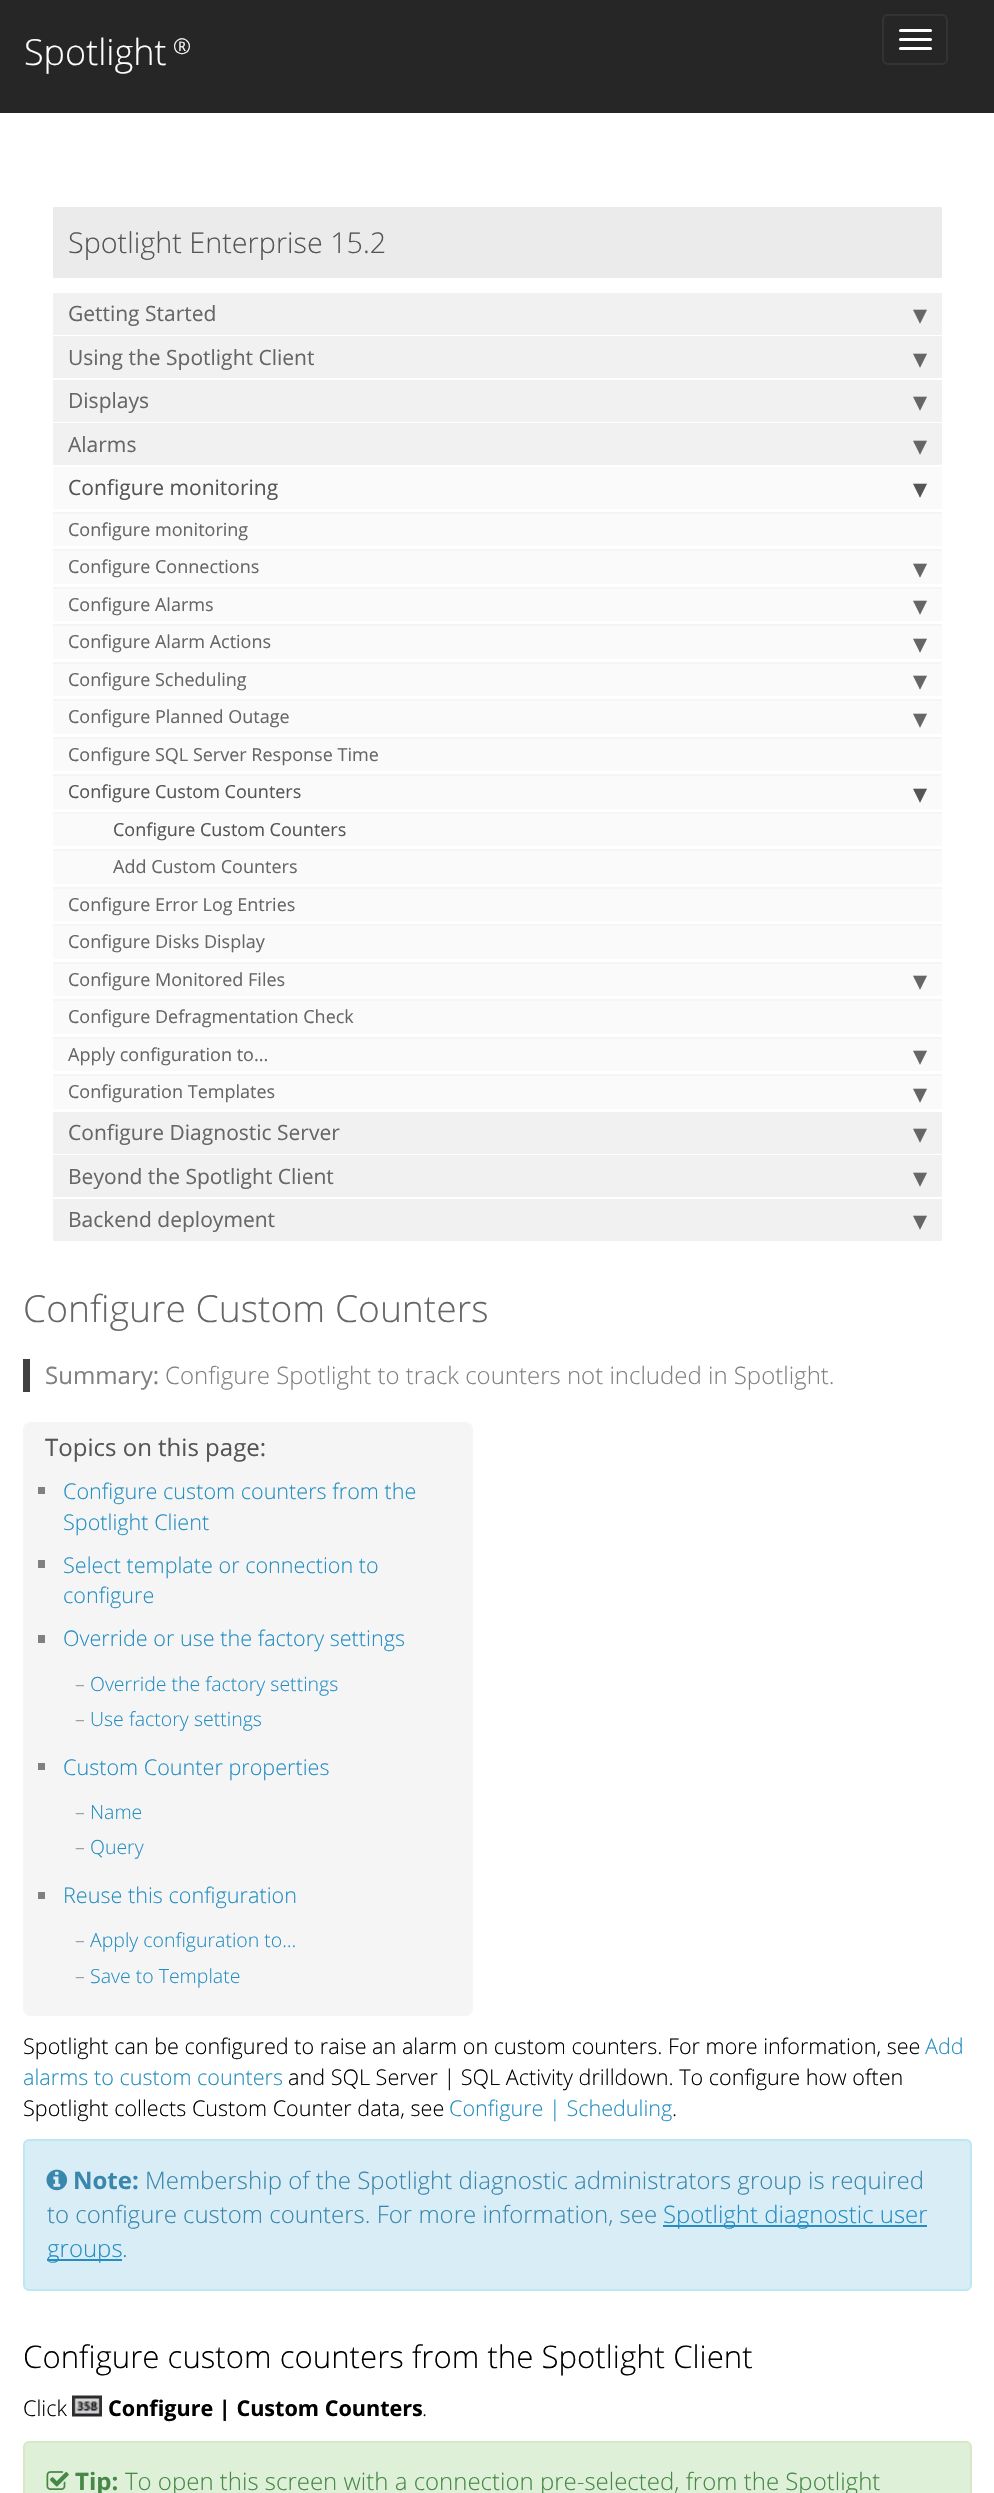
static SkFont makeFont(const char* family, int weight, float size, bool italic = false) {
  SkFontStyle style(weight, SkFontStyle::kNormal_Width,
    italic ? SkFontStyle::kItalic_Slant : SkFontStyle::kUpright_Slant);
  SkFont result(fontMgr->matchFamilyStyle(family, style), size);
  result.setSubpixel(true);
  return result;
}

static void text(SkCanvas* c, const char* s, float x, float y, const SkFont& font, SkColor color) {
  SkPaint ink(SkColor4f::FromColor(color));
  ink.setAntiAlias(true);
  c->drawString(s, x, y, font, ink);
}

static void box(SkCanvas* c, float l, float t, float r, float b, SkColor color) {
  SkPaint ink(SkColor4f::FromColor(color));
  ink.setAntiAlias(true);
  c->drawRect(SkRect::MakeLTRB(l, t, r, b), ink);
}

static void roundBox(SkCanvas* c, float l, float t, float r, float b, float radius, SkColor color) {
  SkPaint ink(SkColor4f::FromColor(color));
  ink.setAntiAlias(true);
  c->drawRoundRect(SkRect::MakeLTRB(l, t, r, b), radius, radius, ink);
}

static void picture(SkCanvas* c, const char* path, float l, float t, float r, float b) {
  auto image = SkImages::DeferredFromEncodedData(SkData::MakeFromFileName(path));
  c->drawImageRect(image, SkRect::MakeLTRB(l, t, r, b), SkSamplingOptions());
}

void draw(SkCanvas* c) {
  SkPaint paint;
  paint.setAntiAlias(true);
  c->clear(0xffffffff);
  box(c, 0, 0, 994, 113, 0xff262626);
  SkFont face1 = makeFont("Open Sans", 300, 36);
  text(c, "Spotlight", 24, 65, face1, 0xffffffff);
  SkFont face2 = makeFont("Open Sans", 300, 21.6f);
  text(c, "®", 173, 54, face2, 0xffffffff);
  paint.setStyle(SkPaint::kStroke_Style);
  paint.setStrokeWidth(2);
  paint.setColor(0xff333333);
  c->drawRoundRect(SkRect::MakeLTRB(883, 15, 947, 64), 5, 5, paint);
  roundBox(c, 899, 29, 932, 32, 1.5f, 0xffffffff);
  roundBox(c, 899, 38, 932, 41, 1.5f, 0xffffffff);
  roundBox(c, 899, 47, 932, 50, 1.5f, 0xffffffff);
  box(c, 53, 207, 942, 278, 0xffebebeb);
  SkFont face3 = makeFont("Open Sans", 300, 28.75f);
  text(c, "Spotlight Enterprise 15.2", 68, 253, face3, 0xff555555);
  box(c, 53, 293, 942, 335, 0xfff1f1f1);
  SkFont face4 = makeFont("Open Sans", 400, 21);
  text(c, "Getting Started", 68, 321, face4, 0xff666666);
  SkFont face5 = makeFont("DejaVu Sans", 400, 28);
  text(c, "▾", 913, 324, face5, 0xff666666);
  box(c, 53, 336, 942, 378, 0xfff1f1f1);
  text(c, "Using the Spotlight Client", 68, 365, face4, 0xff666666);
  text(c, "▾", 913, 368, face5, 0xff666666);
  box(c, 53, 380, 942, 422, 0xfff1f1f1);
  text(c, "Displays", 68, 408, face4, 0xff666666);
  text(c, "▾", 913, 411, face5, 0xff666666);
  box(c, 53, 423, 942, 465, 0xfff1f1f1);
  text(c, "Alarms", 68, 452, face4, 0xff666666);
  text(c, "▾", 913, 455, face5, 0xff666666);
  box(c, 53, 467, 942, 509, 0xfffafafa);
  text(c, "Configure monitoring", 68, 495, face4, 0xff555555);
  text(c, "▾", 913, 498, face5, 0xff555555);
  box(c, 53, 514, 942, 546, 0xfffafafa);
  box(c, 53, 512, 942, 514, 0xfff5f5f5);
  SkFont face6 = makeFont("Open Sans", 400, 18);
  text(c, "Configure monitoring", 68, 536, face6, 0xff666666);
  box(c, 53, 551, 942, 584, 0xfffafafa);
  box(c, 53, 549, 942, 551, 0xfff5f5f5);
  text(c, "Configure Connections", 68, 573, face6, 0xff666666);
  text(c, "▾", 913, 578, face5, 0xff666666);
  box(c, 53, 589, 942, 621, 0xfffafafa);
  box(c, 53, 587, 942, 589, 0xfff5f5f5);
  text(c, "Configure Alarms", 68, 611, face6, 0xff666666);
  text(c, "▾", 913, 615, face5, 0xff666666);
  box(c, 53, 626, 942, 659, 0xfffafafa);
  box(c, 53, 624, 942, 626, 0xfff5f5f5);
  text(c, "Configure Alarm Actions", 68, 648, face6, 0xff666666);
  text(c, "▾", 913, 653, face5, 0xff666666);
  box(c, 53, 664, 942, 696, 0xfffafafa);
  box(c, 53, 662, 942, 664, 0xfff5f5f5);
  text(c, "Configure Scheduling", 68, 686, face6, 0xff666666);
  text(c, "▾", 913, 690, face5, 0xff666666);
  box(c, 53, 701, 942, 734, 0xfffafafa);
  box(c, 53, 699, 942, 701, 0xfff5f5f5);
  text(c, "Configure Planned Outage", 68, 723, face6, 0xff666666);
  text(c, "▾", 913, 728, face5, 0xff666666);
  box(c, 53, 739, 942, 771, 0xfffafafa);
  box(c, 53, 737, 942, 739, 0xfff5f5f5);
  text(c, "Configure SQL Server Response Time", 68, 761, face6, 0xff666666);
  box(c, 53, 776, 942, 809, 0xfffafafa);
  box(c, 53, 774, 942, 776, 0xfff5f5f5);
  text(c, "Configure Custom Counters", 68, 798, face6, 0xff555555);
  text(c, "▾", 913, 803, face5, 0xff555555);
  box(c, 53, 814, 942, 846, 0xfffafafa);
  box(c, 53, 812, 942, 814, 0xfff5f5f5);
  text(c, "Configure Custom Counters", 113, 836, face6, 0xff555555);
  box(c, 53, 851, 942, 884, 0xfffafafa);
  box(c, 53, 849, 942, 851, 0xfff5f5f5);
  text(c, "Add Custom Counters", 113, 873, face6, 0xff666666);
  box(c, 53, 889, 942, 921, 0xfffafafa);
  box(c, 53, 887, 942, 889, 0xfff5f5f5);
  text(c, "Configure Error Log Entries", 68, 911, face6, 0xff666666);
  box(c, 53, 926, 942, 959, 0xfffafafa);
  box(c, 53, 924, 942, 926, 0xfff5f5f5);
  text(c, "Configure Disks Display", 68, 948, face6, 0xff666666);
  box(c, 53, 964, 942, 996, 0xfffafafa);
  box(c, 53, 962, 942, 964, 0xfff5f5f5);
  text(c, "Configure Monitored Files", 68, 986, face6, 0xff666666);
  text(c, "▾", 913, 990, face5, 0xff666666);
  box(c, 53, 1001, 942, 1034, 0xfffafafa);
  box(c, 53, 999, 942, 1001, 0xfff5f5f5);
  text(c, "Configure Defragmentation Check", 68, 1023, face6, 0xff666666);
  box(c, 53, 1039, 942, 1071, 0xfffafafa);
  box(c, 53, 1037, 942, 1039, 0xfff5f5f5);
  text(c, "Apply configuration to...", 68, 1061, face6, 0xff666666);
  text(c, "▾", 913, 1065, face5, 0xff666666);
  box(c, 53, 1076, 942, 1109, 0xfffafafa);
  box(c, 53, 1074, 942, 1076, 0xfff5f5f5);
  text(c, "Configuration Templates", 68, 1098, face6, 0xff666666);
  text(c, "▾", 913, 1103, face5, 0xff666666);
  box(c, 53, 1112, 942, 1154, 0xfff1f1f1);
  text(c, "Configure Diagnostic Server", 68, 1140, face4, 0xff666666);
  text(c, "▾", 913, 1143, face5, 0xff666666);
  box(c, 53, 1155, 942, 1197, 0xfff1f1f1);
  text(c, "Beyond the Spotlight Client", 68, 1184, face4, 0xff666666);
  text(c, "▾", 913, 1187, face5, 0xff666666);
  box(c, 53, 1199, 942, 1241, 0xfff1f1f1);
  text(c, "Backend deployment", 68, 1227, face4, 0xff666666);
  text(c, "▾", 913, 1230, face5, 0xff666666);
  SkFont face7 = makeFont("Open Sans", 300, 37.25f);
  text(c, "Configure Custom Counters", 23, 1322, face7, 0xff666666);
  box(c, 23, 1359, 30, 1392, 0xff404040);
  SkFont face8 = makeFont("Open Sans", 400, 24);
  text(c, "Summary:", 45, 1384, face8, 0xff808080);
  SkFont face9 = makeFont("Open Sans", 300, 24);
  text(c, "Configure Spotlight to track counters not included in Spotlight.", 165, 1384, face9, 0xff808080);
  roundBox(c, 23, 1422, 473, 2016, 8, 0xfff5f5f5);
  text(c, "Topics on this page:", 45, 1456, face8, 0xff555555);
  box(c, 38, 1487, 45, 1494, 0xff808080);
  text(c, "Configure custom counters from the", 63, 1499, face2, 0xff248ec2);
  text(c, "Spotlight Client", 63, 1530, face2, 0xff248ec2);
  box(c, 38, 1560, 45, 1568, 0xff808080);
  text(c, "Select template or connection to", 63, 1573, face2, 0xff248ec2);
  text(c, "configure", 63, 1603, face2, 0xff248ec2);
  box(c, 38, 1635, 45, 1643, 0xff808080);
  text(c, "Override or use the factory settings", 63, 1646, face2, 0xff248ec2);
  SkFont face10 = makeFont("Open Sans", 300, 19.5f);
  text(c, "–", 75, 1691, face10, 0xff808080);
  text(c, "Override the factory settings", 90, 1691, face10, 0xff248ec2);
  text(c, "–", 75, 1726, face10, 0xff808080);
  text(c, "Use factory settings", 90, 1726, face10, 0xff248ec2);
  box(c, 38, 1763, 45, 1770, 0xff808080);
  text(c, "Custom Counter properties", 63, 1775, face2, 0xff248ec2);
  text(c, "–", 75, 1819, face10, 0xff808080);
  text(c, "Name", 90, 1819, face10, 0xff248ec2);
  text(c, "–", 75, 1854, face10, 0xff808080);
  text(c, "Query", 90, 1854, face10, 0xff248ec2);
  box(c, 38, 1892, 45, 1899, 0xff808080);
  text(c, "Reuse this configuration", 63, 1903, face2, 0xff248ec2);
  text(c, "–", 75, 1947, face10, 0xff808080);
  text(c, "Apply configuration to…", 90, 1947, face10, 0xff248ec2);
  text(c, "–", 75, 1983, face10, 0xff808080);
  text(c, "Save to Template", 90, 1983, face10, 0xff248ec2);
  text(c, "Spotlight can be configured to raise an alarm on custom counters. For more information, see", 23, 2054, face2, 0xff000000);
  text(c, "Add", 925, 2054, face2, 0xff248ec2);
  text(c, "alarms to custom counters", 23, 2085, face2, 0xff248ec2);
  text(c, "and SQL Server | SQL Activity drilldown. To configure how often", 288, 2085, face2, 0xff000000);
  text(c, "Spotlight collects Custom Counter data, see", 23, 2116, face2, 0xff000000);
  text(c, "Configure | Scheduling", 449, 2116, face2, 0xff248ec2);
  text(c, ".", 672, 2116, face2, 0xff000000);
  paint.setStyle(SkPaint::kFill_Style);
  paint.setColor(0xffd9edf7);
  c->drawRoundRect(SkRect::MakeLTRB(24, 2140, 971, 2290), 5, 5, paint);
  paint.setStyle(SkPaint::kStroke_Style);
  paint.setColor(0xffbce8f1);
  c->drawRoundRect(SkRect::MakeLTRB(24, 2140, 971, 2290), 5, 5, paint);
  picture(c, "img_01.png", 46, 2169, 68, 2191);
  SkFont face11 = makeFont("Open Sans", 700, 24);
  text(c, "Note:", 73, 2189, face11, 0xff3a87ad);
  text(c, "Membership of the Spotlight diagnostic administrators group is required", 145, 2189, face9, 0xff3a87ad);
  text(c, "to configure custom counters. For more information, see", 47, 2223, face9, 0xff3a87ad);
  box(c, 663, 2225, 927, 2227, 0xff248ec2);
  text(c, "Spotlight diagnostic user", 663, 2223, face9, 0xff248ec2);
  box(c, 47, 2259, 122, 2261, 0xff248ec2);
  text(c, "groups", 47, 2257, face9, 0xff248ec2);
  text(c, ".", 122, 2257, face9, 0xff3a87ad);
  SkFont face12 = makeFont("Open Sans", 300, 31.2f);
  text(c, "Configure custom counters from the Spotlight Client", 23, 2368, face12, 0xff000000);
  text(c, "Click", 23, 2416, face2, 0xff000000);
  picture(c, "img_02.png", 72, 2395, 102, 2417);
  SkFont face13 = makeFont("Open Sans", 700, 21.6f);
  text(c, "Configure | Custom Counters", 108, 2416, face13, 0xff000000);
  text(c, ".", 422, 2416, face2, 0xff000000);
  paint.setStyle(SkPaint::kFill_Style);
  paint.setColor(0xffdff0d8);
  c->drawRoundRect(SkRect::MakeLTRB(24, 2442, 971, 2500), 5, 5, paint);
  paint.setStyle(SkPaint::kStroke_Style);
  paint.setColor(0xffd6e9c6);
  c->drawRoundRect(SkRect::MakeLTRB(24, 2442, 971, 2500), 5, 5, paint);
  picture(c, "img_03.png", 46, 2471, 69, 2490);
  text(c, "Tip:", 75, 2490, face11, 0xff468847);
  text(c, "To open this screen with a connection pre-selected, from the Spotlight", 125, 2490, face9, 0xff468847);
}
